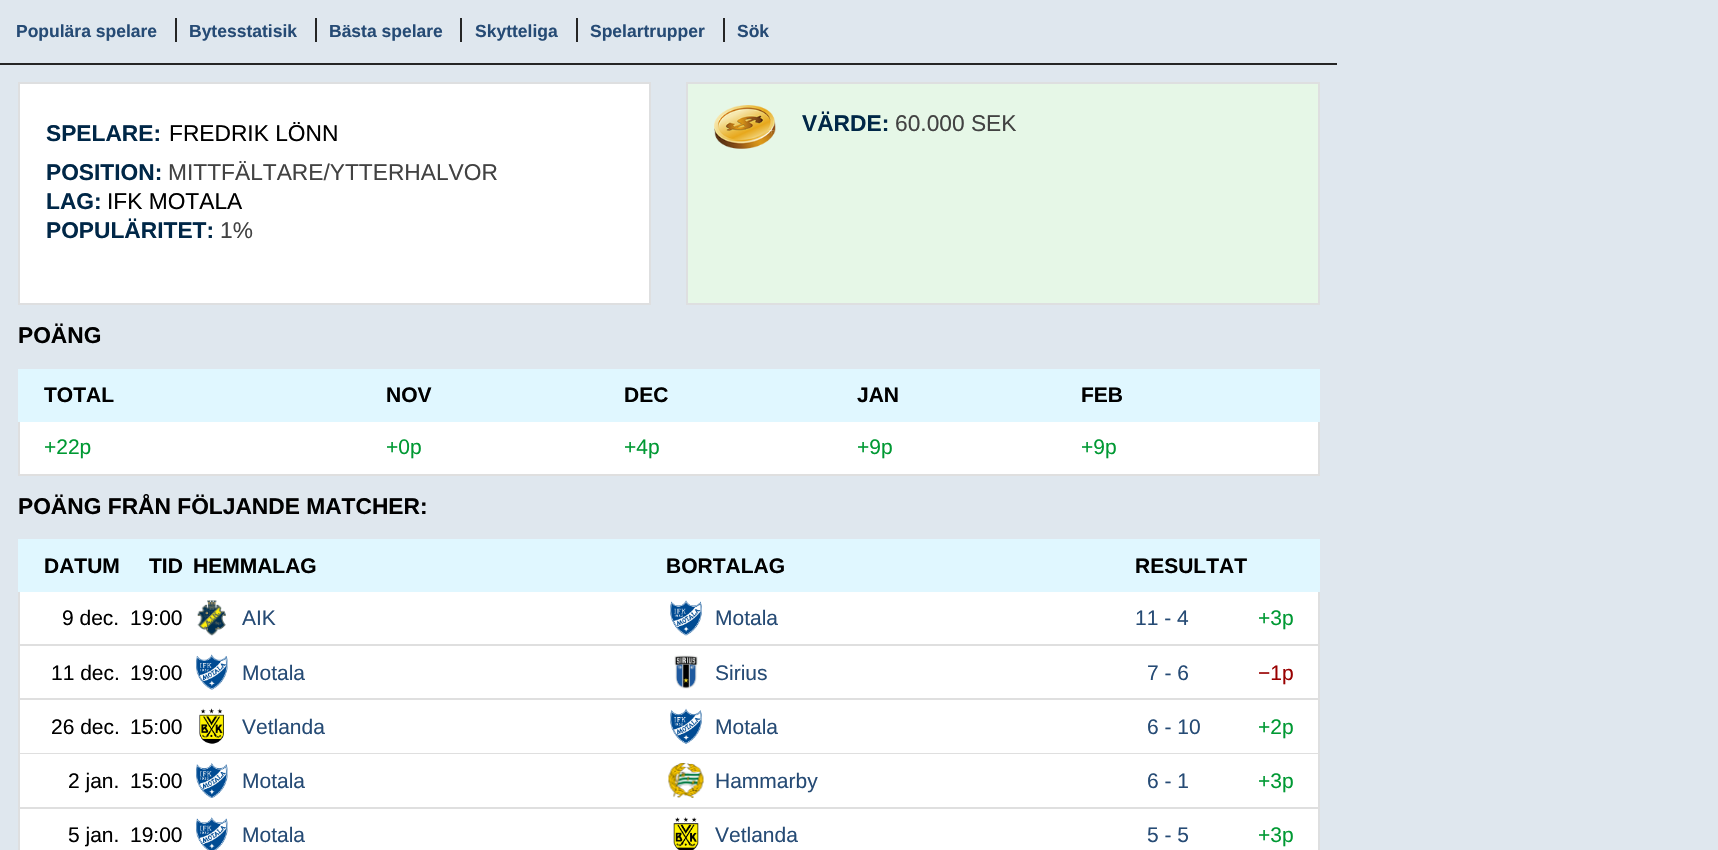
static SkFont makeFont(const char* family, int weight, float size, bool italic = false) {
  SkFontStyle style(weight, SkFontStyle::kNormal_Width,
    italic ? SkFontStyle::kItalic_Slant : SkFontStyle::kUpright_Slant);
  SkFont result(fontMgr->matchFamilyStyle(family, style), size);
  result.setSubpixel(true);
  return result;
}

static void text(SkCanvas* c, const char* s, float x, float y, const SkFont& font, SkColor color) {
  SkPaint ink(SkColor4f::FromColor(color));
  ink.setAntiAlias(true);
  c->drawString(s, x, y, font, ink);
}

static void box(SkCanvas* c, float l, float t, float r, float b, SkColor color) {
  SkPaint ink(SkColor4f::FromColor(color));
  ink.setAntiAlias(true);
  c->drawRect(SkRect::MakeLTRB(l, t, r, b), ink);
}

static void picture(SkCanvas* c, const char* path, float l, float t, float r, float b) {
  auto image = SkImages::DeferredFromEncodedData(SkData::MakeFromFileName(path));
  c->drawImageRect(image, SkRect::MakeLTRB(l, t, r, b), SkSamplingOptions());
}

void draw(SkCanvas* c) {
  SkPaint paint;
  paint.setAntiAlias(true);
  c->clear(0xffdfe7ee);
  box(c, 0, 63, 1337, 65, 0xff252525);
  SkFont face1 = makeFont("Liberation Sans", 700, 17.5f);
  text(c, "Populära spelare", 16, 37, face1, 0xff264b75);
  box(c, 175, 18, 177, 42, 0xff252525);
  text(c, "Bytesstatisik", 189, 37, face1, 0xff264b75);
  box(c, 315, 18, 317, 42, 0xff252525);
  text(c, "Bästa spelare", 329, 37, face1, 0xff264b75);
  box(c, 460, 18, 462, 42, 0xff252525);
  text(c, "Skytteliga", 475, 37, face1, 0xff264b75);
  box(c, 576, 18, 578, 42, 0xff252525);
  text(c, "Spelartrupper", 590, 37, face1, 0xff264b75);
  box(c, 723, 18, 725, 42, 0xff252525);
  text(c, "Sök", 737, 37, face1, 0xff264b75);
  paint.setColor(0xffffffff);
  c->drawRect(SkRect::MakeLTRB(19, 83, 650, 304), paint);
  paint.setStyle(SkPaint::kStroke_Style);
  paint.setStrokeWidth(2);
  paint.setColor(0xffdedfe0);
  c->drawRect(SkRect::MakeLTRB(19, 83, 650, 304), paint);
  SkFont face2 = makeFont("Liberation Sans", 700, 22.75f);
  text(c, "SPELARE:", 46, 141, face2, 0xff002747);
  SkFont face3 = makeFont("Liberation Sans", 400, 22.75f);
  text(c, "FREDRIK LÖNN", 169, 141, face3, 0xff000000);
  text(c, "POSITION:", 46, 180, face2, 0xff002747);
  text(c, "MITTFÄLTARE/YTTERHALVOR", 168, 180, face3, 0xff424242);
  text(c, "LAG:", 46, 209, face2, 0xff002747);
  text(c, "IFK MOTALA", 107, 209, face3, 0xff000000);
  text(c, "POPULÄRITET:", 46, 238, face2, 0xff002747);
  text(c, "1%", 220, 238, face3, 0xff424242);
  paint.setStyle(SkPaint::kFill_Style);
  paint.setColor(0xffe6f7e7);
  c->drawRect(SkRect::MakeLTRB(687, 83, 1319, 304), paint);
  paint.setStyle(SkPaint::kStroke_Style);
  paint.setColor(0xffdedfe0);
  c->drawRect(SkRect::MakeLTRB(687, 83, 1319, 304), paint);
  picture(c, "img_01.png", 714, 105, 776, 149);
  text(c, "VÄRDE:", 802, 131, face2, 0xff002747);
  text(c, "60.000 SEK", 895, 131, face3, 0xff424242);
  text(c, "POÄNG", 18, 343, face2, 0xff000000);
  box(c, 18, 369, 1320, 422, 0xffe0f7ff);
  SkFont face4 = makeFont("Liberation Sans", 700, 21);
  text(c, "TOTAL", 44, 402, face4, 0xff000000);
  text(c, "NOV", 386, 402, face4, 0xff000000);
  text(c, "DEC", 624, 402, face4, 0xff000000);
  text(c, "JAN", 857, 402, face4, 0xff000000);
  text(c, "FEB", 1081, 402, face4, 0xff000000);
  box(c, 20, 422, 1318, 474, 0xffffffff);
  box(c, 18, 474, 1299, 476, 0xffdfdfdf);
  box(c, 18, 422, 20, 476, 0xffdedfe0);
  box(c, 1318, 422, 1320, 476, 0xffdedfe0);
  box(c, 1299, 474, 1320, 476, 0xffdfdfdf);
  SkFont face5 = makeFont("Liberation Sans", 400, 21);
  text(c, "+22p", 44, 454, face5, 0xff009933);
  text(c, "+0p", 386, 454, face5, 0xff009933);
  text(c, "+4p", 624, 454, face5, 0xff009933);
  text(c, "+9p", 857, 454, face5, 0xff009933);
  text(c, "+9p", 1081, 454, face5, 0xff009933);
  text(c, "POÄNG FRÅN FÖLJANDE MATCHER:", 18, 514, face2, 0xff000000);
  box(c, 18, 539, 1320, 592, 0xffe0f7ff);
  text(c, "DATUM", 44, 573, face4, 0xff000000);
  text(c, "TID", 149, 573, face4, 0xff000000);
  text(c, "HEMMALAG", 193, 573, face4, 0xff000000);
  text(c, "BORTALAG", 666, 573, face4, 0xff000000);
  text(c, "RESULTAT", 1135, 573, face4, 0xff000000);
  box(c, 20, 592, 1318, 644, 0xffffffff);
  box(c, 18, 644, 1299, 646, 0xffdfdfdf);
  box(c, 18, 592, 20, 646, 0xffdedfe0);
  box(c, 1318, 592, 1320, 850, 0xffdedfe0);
  box(c, 1299, 644, 1320, 646, 0xffdfdfdf);
  text(c, "9 dec.", 62, 625, face5, 0xff000000);
  text(c, "19:00", 130, 625, face5, 0xff000000);
  picture(c, "img_02.png", 197, 600, 226, 636);
  text(c, "AIK", 242, 625, face5, 0xff264b75);
  picture(c, "img_03.png", 670, 600, 702, 636);
  text(c, "Motala", 715, 625, face5, 0xff264b75);
  text(c, "11 - 4", 1135, 625, face5, 0xff264b75);
  text(c, "+3p", 1258, 625, face5, 0xff009933);
  box(c, 20, 646, 1318, 698, 0xffffffff);
  box(c, 18, 698, 1320, 700, 0xffdfdfdf);
  box(c, 18, 646, 20, 700, 0xffdedfe0);
  text(c, "11 dec.", 51, 680, face5, 0xff000000);
  text(c, "19:00", 130, 680, face5, 0xff000000);
  picture(c, "img_04.png", 196, 654, 228, 690);
  text(c, "Motala", 242, 680, face5, 0xff264b75);
  picture(c, "img_05.png", 674, 655, 698, 689);
  text(c, "Sirius", 715, 680, face5, 0xff264b75);
  text(c, "7 - 6", 1147, 680, face5, 0xff264b75);
  text(c, "−1p", 1258, 680, face5, 0xff990000);
  box(c, 20, 700, 1318, 753, 0xffffffff);
  box(c, 18, 753, 1320, 754, 0xffdfdfdf);
  box(c, 18, 700, 20, 754, 0xffdedfe0);
  text(c, "26 dec.", 51, 734, face5, 0xff000000);
  text(c, "15:00", 130, 734, face5, 0xff000000);
  picture(c, "img_06.png", 199, 708, 224, 744);
  text(c, "Vetlanda", 242, 734, face5, 0xff264b75);
  picture(c, "img_07.png", 670, 708, 702, 744);
  text(c, "Motala", 715, 734, face5, 0xff264b75);
  text(c, "6 - 10", 1147, 734, face5, 0xff264b75);
  text(c, "+2p", 1258, 734, face5, 0xff009933);
  box(c, 20, 754, 1318, 807, 0xffffffff);
  box(c, 18, 807, 1320, 809, 0xffdfdfdf);
  box(c, 18, 754, 20, 850, 0xffdedfe0);
  text(c, "2 jan.", 68, 788, face5, 0xff000000);
  text(c, "15:00", 130, 788, face5, 0xff000000);
  picture(c, "img_08.png", 196, 763, 228, 798);
  text(c, "Motala", 242, 788, face5, 0xff264b75);
  picture(c, "img_09.png", 668, 763, 704, 798);
  text(c, "Hammarby", 715, 788, face5, 0xff264b75);
  text(c, "6 - 1", 1147, 788, face5, 0xff264b75);
  text(c, "+3p", 1258, 788, face5, 0xff009933);
  box(c, 20, 809, 1318, 850, 0xffffffff);
  text(c, "5 jan.", 68, 842, face5, 0xff000000);
  text(c, "19:00", 130, 842, face5, 0xff000000);
  picture(c, "img_10.png", 196, 817, 228, 850);
  text(c, "Motala", 242, 842, face5, 0xff264b75);
  picture(c, "img_11.png", 673, 817, 699, 850);
  text(c, "Vetlanda", 715, 842, face5, 0xff264b75);
  text(c, "5 - 5", 1147, 842, face5, 0xff264b75);
  text(c, "+3p", 1258, 842, face5, 0xff009933);
}
